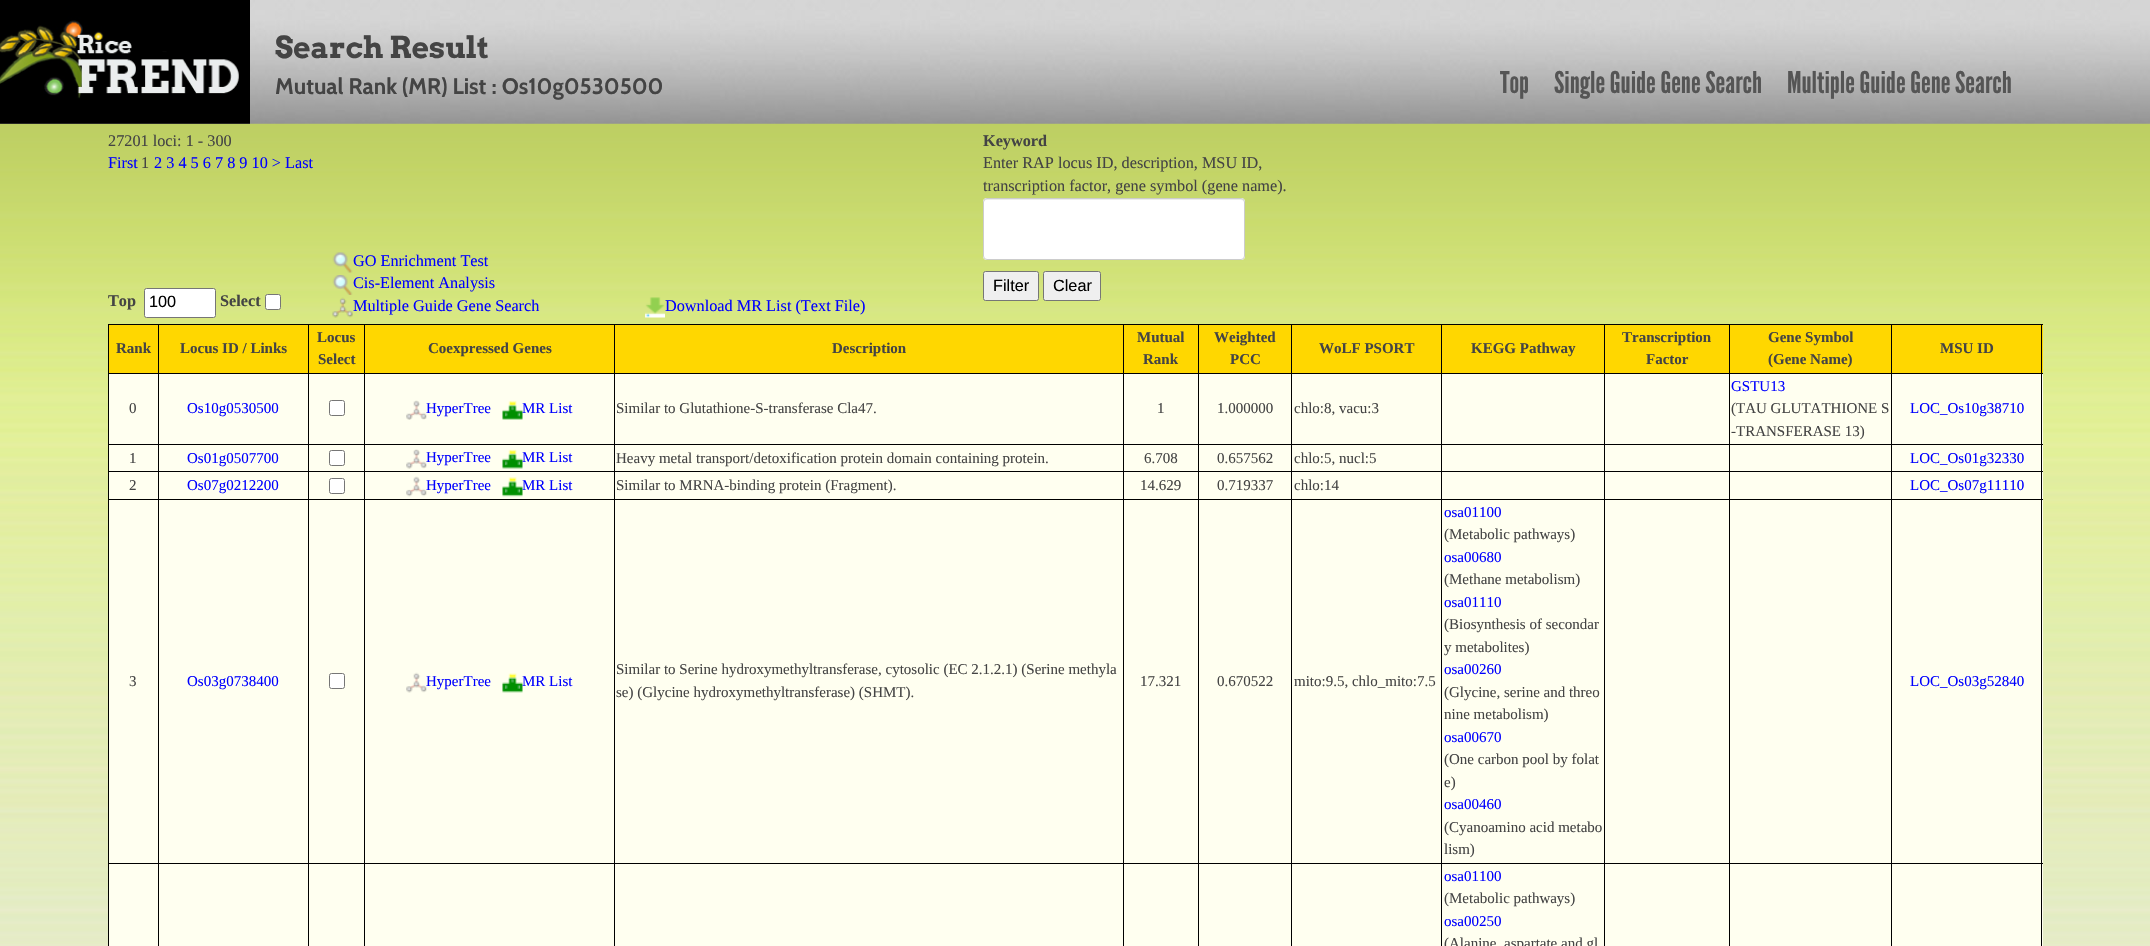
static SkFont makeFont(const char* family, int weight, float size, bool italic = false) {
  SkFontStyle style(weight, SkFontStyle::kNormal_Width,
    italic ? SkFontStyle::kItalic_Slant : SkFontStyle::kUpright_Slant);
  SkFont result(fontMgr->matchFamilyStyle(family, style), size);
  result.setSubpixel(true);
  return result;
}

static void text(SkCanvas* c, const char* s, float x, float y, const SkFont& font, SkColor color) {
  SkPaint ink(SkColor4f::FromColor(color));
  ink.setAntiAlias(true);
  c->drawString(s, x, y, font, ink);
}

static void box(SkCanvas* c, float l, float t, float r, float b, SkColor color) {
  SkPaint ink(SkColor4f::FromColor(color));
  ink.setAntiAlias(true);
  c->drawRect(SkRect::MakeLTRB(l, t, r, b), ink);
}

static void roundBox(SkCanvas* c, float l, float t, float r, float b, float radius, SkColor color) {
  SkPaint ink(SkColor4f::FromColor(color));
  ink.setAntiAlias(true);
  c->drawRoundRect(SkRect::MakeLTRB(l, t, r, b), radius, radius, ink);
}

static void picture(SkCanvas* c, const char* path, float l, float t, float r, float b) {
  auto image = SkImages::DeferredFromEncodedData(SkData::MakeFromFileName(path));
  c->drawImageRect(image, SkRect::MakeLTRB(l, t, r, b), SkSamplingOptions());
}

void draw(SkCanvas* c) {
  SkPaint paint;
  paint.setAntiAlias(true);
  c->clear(0xffffffff);
  picture(c, "img_01.png", 0, 123, 2150, 946);
  picture(c, "img_02.png", 0, 0, 2150, 124);
  picture(c, "img_03.png", 0, 0, 250, 124);
  SkFont face1 = makeFont("Arvo", 700, 30);
  text(c, "Search Result", 275, 58, face1, 0xff444444);
  SkFont face2 = makeFont("Cabin", 700, 22.5f);
  text(c, "Mutual Rank (MR) List : Os10g0530500", 275, 94, face2, 0xff444444);
  SkFont face3 = makeFont("League Gothic", 400, 30);
  text(c, "Top", 1500, 93, face3, 0xff555555);
  text(c, "Single Guide Gene Search", 1554, 93, face3, 0xff555555);
  text(c, "Multiple Guide Gene Search", 1787, 93, face3, 0xff555555);
  SkFont face4 = makeFont("Liberation Serif", 400, 16.25f);
  text(c, "27201 loci: 1 - 300", 108, 146, face4, 0xff444444);
  text(c, "First", 108, 168, face4, 0xff0000ff);
  text(c, "1", 141, 168, face4, 0xff444444);
  text(c, "2 3 4 5 6 7 8 9 10 > Last", 154, 168, face4, 0xff0000ff);
  SkFont face5 = makeFont("Liberation Serif", 700, 16.25f);
  text(c, "Top", 108, 306, face5, 0xff444444);
  paint.setColor(0xffffffff);
  c->drawRoundRect(SkRect::MakeLTRB(144.5f, 288.5f, 215.5f, 317.5f), 2, 2, paint);
  paint.setStyle(SkPaint::kStroke_Style);
  paint.setStrokeWidth(1);
  paint.setColor(0xff767676);
  c->drawRoundRect(SkRect::MakeLTRB(144.5f, 288.5f, 215.5f, 317.5f), 2, 2, paint);
  SkFont face6 = makeFont("Liberation Sans", 400, 16.25f);
  text(c, "100", 149, 307, face6, 0xff000000);
  text(c, "Select", 220, 306, face5, 0xff444444);
  paint.setStyle(SkPaint::kFill_Style);
  paint.setColor(0xffffffff);
  c->drawRoundRect(SkRect::MakeLTRB(265.5f, 294.5f, 280.5f, 309.5f), 2, 2, paint);
  paint.setStyle(SkPaint::kStroke_Style);
  paint.setColor(0xff767676);
  c->drawRoundRect(SkRect::MakeLTRB(265.5f, 294.5f, 280.5f, 309.5f), 2, 2, paint);
  picture(c, "img_04.png", 332, 252, 353, 273);
  text(c, "GO Enrichment Test", 353, 266, face4, 0xff0000ff);
  picture(c, "img_05.png", 332, 275, 353, 295);
  text(c, "Cis-Element Analysis", 353, 288, face4, 0xff0000ff);
  picture(c, "img_06.png", 332, 297, 353, 318);
  text(c, "Multiple Guide Gene Search", 353, 311, face4, 0xff0000ff);
  picture(c, "img_07.png", 645, 297, 665, 318);
  text(c, "Download MR List (Text File)", 665, 311, face4, 0xff0000ff);
  text(c, "Keyword", 983, 146, face5, 0xff444444);
  text(c, "Enter RAP locus ID, description, MSU ID,", 983, 168, face4, 0xff444444);
  text(c, "transcription factor, gene symbol (gene name).", 983, 191, face4, 0xff444444);
  roundBox(c, 983, 198, 1245, 260, 4, 0xffffffff);
  paint.setStyle(SkPaint::kFill_Style);
  paint.setColor(0xffececec);
  c->drawPath(SkPathBuilder().moveTo(986, 200).lineTo(1241, 200).cubicTo(1243, 200, 1244, 201, 1244, 202).cubicTo(1244, 200, 1243, 199, 1242, 199).lineTo(986, 199).lineTo(984, 200).lineTo(984, 202).cubicTo(984, 201, 985, 200, 986, 200).close().detach(), paint);
  paint.setStyle(SkPaint::kStroke_Style);
  paint.setColor(0xffcccccc);
  c->drawRoundRect(SkRect::MakeLTRB(983.5f, 198.5f, 1244.5f, 259.5f), 3.5f, 3.5f, paint);
  paint.setStyle(SkPaint::kFill_Style);
  paint.setColor(0xffefefef);
  c->drawRoundRect(SkRect::MakeLTRB(983.5f, 271.5f, 1038.5f, 300.5f), 2, 2, paint);
  paint.setStyle(SkPaint::kStroke_Style);
  paint.setColor(0xff767676);
  c->drawRoundRect(SkRect::MakeLTRB(983.5f, 271.5f, 1038.5f, 300.5f), 2, 2, paint);
  text(c, "Filter", 993, 291, face6, 0xff000000);
  paint.setStyle(SkPaint::kFill_Style);
  paint.setColor(0xffefefef);
  c->drawRoundRect(SkRect::MakeLTRB(1043.5f, 271.5f, 1100.5f, 300.5f), 2, 2, paint);
  paint.setStyle(SkPaint::kStroke_Style);
  paint.setColor(0xff767676);
  c->drawRoundRect(SkRect::MakeLTRB(1043.5f, 271.5f, 1100.5f, 300.5f), 2, 2, paint);
  text(c, "Clear", 1053, 291, face6, 0xff000000);
  box(c, 109, 325, 2043, 373, 0xffffd700);
  box(c, 108, 324, 2043, 325, 0xff000000);
  box(c, 2041, 324, 2042, 374, 0xff000000);
  box(c, 108, 373, 2043, 374, 0xff000000);
  box(c, 108, 324, 109, 374, 0xff000000);
  SkFont face7 = makeFont("Liberation Serif", 700, 15);
  text(c, "Rank", 116, 353, face7, 0xff444444);
  box(c, 158, 324, 159, 374, 0xff000000);
  text(c, "Locus ID / Links", 180, 353, face7, 0xff444444);
  box(c, 308, 324, 309, 374, 0xff000000);
  text(c, "Locus", 317, 342, face7, 0xff444444);
  text(c, "Select", 318, 364, face7, 0xff444444);
  box(c, 364, 324, 365, 374, 0xff000000);
  text(c, "Coexpressed Genes", 428, 353, face7, 0xff444444);
  box(c, 614, 324, 615, 374, 0xff000000);
  text(c, "Description", 832, 353, face7, 0xff444444);
  box(c, 1123, 324, 1124, 374, 0xff000000);
  text(c, "Mutual", 1137, 342, face7, 0xff444444);
  text(c, "Rank", 1143, 364, face7, 0xff444444);
  box(c, 1198, 324, 1199, 374, 0xff000000);
  text(c, "Weighted", 1214, 342, face7, 0xff444444);
  text(c, "PCC", 1230, 364, face7, 0xff444444);
  box(c, 1291, 324, 1292, 374, 0xff000000);
  text(c, "WoLF PSORT", 1319, 353, face7, 0xff444444);
  box(c, 1441, 324, 1442, 374, 0xff000000);
  text(c, "KEGG Pathway", 1471, 353, face7, 0xff444444);
  box(c, 1604, 324, 1605, 374, 0xff000000);
  text(c, "Transcription", 1622, 342, face7, 0xff444444);
  text(c, "Factor", 1646, 364, face7, 0xff444444);
  box(c, 1729, 324, 1730, 374, 0xff000000);
  text(c, "Gene Symbol", 1768, 342, face7, 0xff444444);
  text(c, "(Gene Name)", 1768, 364, face7, 0xff444444);
  box(c, 1891, 324, 1892, 374, 0xff000000);
  text(c, "MSU ID", 1940, 353, face7, 0xff444444);
  box(c, 109, 374, 2043, 946, 0xfffffff0);
  box(c, 2041, 374, 2042, 946, 0xff000000);
  box(c, 1891, 863, 1892, 946, 0xff000000);
  box(c, 1891, 863, 2043, 864, 0xff000000);
  box(c, 1891, 499, 1892, 864, 0xff000000);
  box(c, 1891, 499, 2043, 500, 0xff000000);
  box(c, 1891, 471, 1892, 500, 0xff000000);
  box(c, 1891, 471, 2043, 472, 0xff000000);
  box(c, 1891, 444, 1892, 473, 0xff000000);
  box(c, 1891, 444, 2043, 445, 0xff000000);
  box(c, 1891, 374, 1892, 445, 0xff000000);
  box(c, 1729, 863, 1730, 946, 0xff000000);
  box(c, 1729, 863, 1893, 864, 0xff000000);
  box(c, 1729, 499, 1730, 864, 0xff000000);
  box(c, 1729, 499, 1893, 500, 0xff000000);
  box(c, 1729, 471, 1730, 500, 0xff000000);
  box(c, 1729, 471, 1893, 472, 0xff000000);
  box(c, 1729, 444, 1730, 473, 0xff000000);
  box(c, 1729, 444, 1893, 445, 0xff000000);
  box(c, 1729, 374, 1730, 445, 0xff000000);
  box(c, 1604, 863, 1605, 946, 0xff000000);
  box(c, 1604, 863, 1730, 864, 0xff000000);
  box(c, 1604, 499, 1605, 864, 0xff000000);
  box(c, 1604, 499, 1730, 500, 0xff000000);
  box(c, 1604, 471, 1605, 500, 0xff000000);
  box(c, 1604, 471, 1730, 472, 0xff000000);
  box(c, 1604, 444, 1605, 473, 0xff000000);
  box(c, 1604, 444, 1730, 445, 0xff000000);
  box(c, 1604, 374, 1605, 445, 0xff000000);
  box(c, 1441, 863, 1442, 946, 0xff000000);
  box(c, 1441, 863, 1605, 864, 0xff000000);
  box(c, 1441, 499, 1442, 864, 0xff000000);
  box(c, 1441, 499, 1605, 500, 0xff000000);
  box(c, 1441, 471, 1442, 500, 0xff000000);
  box(c, 1441, 471, 1605, 472, 0xff000000);
  box(c, 1441, 444, 1442, 473, 0xff000000);
  box(c, 1441, 444, 1605, 445, 0xff000000);
  box(c, 1441, 374, 1442, 445, 0xff000000);
  box(c, 1291, 863, 1292, 946, 0xff000000);
  box(c, 1291, 863, 1443, 864, 0xff000000);
  box(c, 1291, 499, 1292, 864, 0xff000000);
  box(c, 1291, 499, 1443, 500, 0xff000000);
  box(c, 1291, 471, 1292, 500, 0xff000000);
  box(c, 1291, 471, 1443, 472, 0xff000000);
  box(c, 1291, 444, 1292, 473, 0xff000000);
  box(c, 1291, 444, 1443, 445, 0xff000000);
  box(c, 1291, 374, 1292, 445, 0xff000000);
  box(c, 1198, 863, 1199, 946, 0xff000000);
  box(c, 1198, 863, 1293, 864, 0xff000000);
  box(c, 1198, 499, 1199, 864, 0xff000000);
  box(c, 1198, 499, 1293, 500, 0xff000000);
  box(c, 1198, 471, 1199, 500, 0xff000000);
  box(c, 1198, 471, 1293, 472, 0xff000000);
  box(c, 1198, 444, 1199, 473, 0xff000000);
  box(c, 1198, 444, 1293, 445, 0xff000000);
  box(c, 1198, 374, 1199, 445, 0xff000000);
  box(c, 1123, 863, 1124, 946, 0xff000000);
  box(c, 1123, 863, 1199, 864, 0xff000000);
  box(c, 1123, 499, 1124, 864, 0xff000000);
  box(c, 1123, 499, 1199, 500, 0xff000000);
  box(c, 1123, 471, 1124, 500, 0xff000000);
  box(c, 1123, 471, 1199, 472, 0xff000000);
  box(c, 1123, 444, 1124, 473, 0xff000000);
  box(c, 1123, 444, 1199, 445, 0xff000000);
  box(c, 1123, 374, 1124, 445, 0xff000000);
  box(c, 614, 863, 615, 946, 0xff000000);
  box(c, 614, 863, 1124, 864, 0xff000000);
  box(c, 614, 499, 615, 864, 0xff000000);
  box(c, 614, 499, 1124, 500, 0xff000000);
  box(c, 614, 471, 615, 500, 0xff000000);
  box(c, 614, 471, 1124, 472, 0xff000000);
  box(c, 614, 444, 615, 473, 0xff000000);
  box(c, 614, 444, 1124, 445, 0xff000000);
  box(c, 614, 374, 615, 445, 0xff000000);
  box(c, 364, 863, 365, 946, 0xff000000);
  box(c, 364, 863, 615, 864, 0xff000000);
  box(c, 364, 499, 365, 864, 0xff000000);
  box(c, 364, 499, 615, 500, 0xff000000);
  box(c, 364, 471, 365, 500, 0xff000000);
  box(c, 364, 471, 615, 472, 0xff000000);
  box(c, 364, 444, 365, 473, 0xff000000);
  box(c, 364, 444, 615, 445, 0xff000000);
  box(c, 364, 374, 365, 445, 0xff000000);
  box(c, 308, 863, 309, 946, 0xff000000);
  box(c, 308, 863, 365, 864, 0xff000000);
  box(c, 308, 499, 309, 864, 0xff000000);
  box(c, 308, 499, 365, 500, 0xff000000);
  box(c, 308, 471, 309, 500, 0xff000000);
  box(c, 308, 471, 365, 472, 0xff000000);
  box(c, 308, 444, 309, 473, 0xff000000);
  box(c, 308, 444, 365, 445, 0xff000000);
  box(c, 308, 374, 309, 445, 0xff000000);
  box(c, 158, 863, 159, 946, 0xff000000);
  box(c, 158, 863, 309, 864, 0xff000000);
  box(c, 158, 499, 159, 864, 0xff000000);
  box(c, 158, 499, 309, 500, 0xff000000);
  box(c, 158, 471, 159, 500, 0xff000000);
  box(c, 158, 471, 309, 472, 0xff000000);
  box(c, 158, 444, 159, 473, 0xff000000);
  box(c, 158, 444, 309, 445, 0xff000000);
  box(c, 158, 374, 159, 445, 0xff000000);
  box(c, 108, 863, 109, 946, 0xff000000);
  box(c, 108, 863, 159, 864, 0xff000000);
  box(c, 108, 499, 109, 864, 0xff000000);
  box(c, 108, 499, 159, 500, 0xff000000);
  box(c, 108, 471, 109, 500, 0xff000000);
  box(c, 108, 471, 159, 472, 0xff000000);
  box(c, 108, 444, 109, 473, 0xff000000);
  box(c, 108, 444, 159, 445, 0xff000000);
  box(c, 108, 374, 109, 445, 0xff000000);
  SkFont face8 = makeFont("Liberation Serif", 400, 15);
  text(c, "0", 129, 413, face8, 0xff444444);
  text(c, "Os10g0530500", 187, 413, face8, 0xff0000ff);
  paint.setStyle(SkPaint::kFill_Style);
  paint.setColor(0xffffffff);
  c->drawRoundRect(SkRect::MakeLTRB(329.5f, 400.5f, 344.5f, 415.5f), 2, 2, paint);
  paint.setStyle(SkPaint::kStroke_Style);
  paint.setColor(0xff767676);
  c->drawRoundRect(SkRect::MakeLTRB(329.5f, 400.5f, 344.5f, 415.5f), 2, 2, paint);
  picture(c, "img_08.png", 406, 400, 427, 420);
  text(c, "HyperTree", 426, 413, face8, 0xff0000ff);
  picture(c, "img_09.png", 502, 400, 523, 420);
  text(c, "MR List", 522, 413, face8, 0xff0000ff);
  text(c, "Similar to Glutathione-S-transferase Cla47.", 616, 413, face8, 0xff444444);
  text(c, "1", 1157, 413, face8, 0xff444444);
  text(c, "1.000000", 1217, 413, face8, 0xff444444);
  text(c, "chlo:8, vacu:3", 1294, 413, face8, 0xff444444);
  text(c, "GSTU13", 1731, 391, face8, 0xff0000ff);
  text(c, "(TAU GLUTATHIONE S", 1731, 413, face8, 0xff444444);
  text(c, "-TRANSFERASE 13)", 1731, 436, face8, 0xff444444);
  text(c, "LOC_Os10g38710", 1910, 413, face8, 0xff0000ff);
  text(c, "1", 129, 463, face8, 0xff444444);
  text(c, "Os01g0507700", 187, 463, face8, 0xff0000ff);
  paint.setStyle(SkPaint::kFill_Style);
  paint.setColor(0xffffffff);
  c->drawRoundRect(SkRect::MakeLTRB(329.5f, 450.5f, 344.5f, 465.5f), 2, 2, paint);
  paint.setStyle(SkPaint::kStroke_Style);
  paint.setColor(0xff767676);
  c->drawRoundRect(SkRect::MakeLTRB(329.5f, 450.5f, 344.5f, 465.5f), 2, 2, paint);
  picture(c, "img_10.png", 406, 449, 427, 469);
  text(c, "HyperTree", 426, 462, face8, 0xff0000ff);
  picture(c, "img_11.png", 502, 449, 523, 469);
  text(c, "MR List", 522, 462, face8, 0xff0000ff);
  text(c, "Heavy metal transport/detoxification protein domain containing protein.", 616, 463, face8, 0xff444444);
  text(c, "6.708", 1144, 463, face8, 0xff444444);
  text(c, "0.657562", 1217, 463, face8, 0xff444444);
  text(c, "chlo:5, nucl:5", 1294, 463, face8, 0xff444444);
  text(c, "LOC_Os01g32330", 1910, 463, face8, 0xff0000ff);
  text(c, "2", 129, 490, face8, 0xff444444);
  text(c, "Os07g0212200", 187, 490, face8, 0xff0000ff);
  paint.setStyle(SkPaint::kFill_Style);
  paint.setColor(0xffffffff);
  c->drawRoundRect(SkRect::MakeLTRB(329.5f, 478.5f, 344.5f, 493.5f), 2, 2, paint);
  paint.setStyle(SkPaint::kStroke_Style);
  paint.setColor(0xff767676);
  c->drawRoundRect(SkRect::MakeLTRB(329.5f, 478.5f, 344.5f, 493.5f), 2, 2, paint);
  picture(c, "img_12.png", 406, 476, 427, 497);
  text(c, "HyperTree", 426, 490, face8, 0xff0000ff);
  picture(c, "img_13.png", 502, 477, 523, 497);
  text(c, "MR List", 522, 490, face8, 0xff0000ff);
  text(c, "Similar to MRNA-binding protein (Fragment).", 616, 490, face8, 0xff444444);
  text(c, "14.629", 1140, 490, face8, 0xff444444);
  text(c, "0.719337", 1217, 490, face8, 0xff444444);
  text(c, "chlo:14", 1294, 490, face8, 0xff444444);
  text(c, "LOC_Os07g11110", 1910, 490, face8, 0xff0000ff);
  text(c, "3", 129, 686, face8, 0xff444444);
  text(c, "Os03g0738400", 187, 686, face8, 0xff0000ff);
  paint.setStyle(SkPaint::kFill_Style);
  paint.setColor(0xffffffff);
  c->drawRoundRect(SkRect::MakeLTRB(329.5f, 673.5f, 344.5f, 688.5f), 2, 2, paint);
  paint.setStyle(SkPaint::kStroke_Style);
  paint.setColor(0xff767676);
  c->drawRoundRect(SkRect::MakeLTRB(329.5f, 673.5f, 344.5f, 688.5f), 2, 2, paint);
  picture(c, "img_14.png", 406, 672, 427, 693);
  text(c, "HyperTree", 426, 686, face8, 0xff0000ff);
  picture(c, "img_15.png", 502, 673, 523, 693);
  text(c, "MR List", 522, 686, face8, 0xff0000ff);
  text(c, "Similar to Serine hydroxymethyltransferase, cytosolic (EC 2.1.2.1) (Serine methyla", 616, 674, face8, 0xff444444);
  text(c, "se) (Glycine hydroxymethyltransferase) (SHMT).", 616, 697, face8, 0xff444444);
  text(c, "17.321", 1140, 686, face8, 0xff444444);
  text(c, "0.670522", 1217, 686, face8, 0xff444444);
  text(c, "mito:9.5, chlo_mito:7.5", 1294, 686, face8, 0xff444444);
  text(c, "osa01100", 1444, 517, face8, 0xff0000ff);
  text(c, "(Metabolic pathways)", 1444, 539, face8, 0xff444444);
  text(c, "osa00680", 1444, 562, face8, 0xff0000ff);
  text(c, "(Methane metabolism)", 1444, 584, face8, 0xff444444);
  text(c, "osa01110", 1444, 607, face8, 0xff0000ff);
  text(c, "(Biosynthesis of secondar", 1444, 629, face8, 0xff444444);
  text(c, "y metabolites)", 1444, 652, face8, 0xff444444);
  text(c, "osa00260", 1444, 674, face8, 0xff0000ff);
  text(c, "(Glycine, serine and threo", 1444, 697, face8, 0xff444444);
  text(c, "nine metabolism)", 1444, 719, face8, 0xff444444);
  text(c, "osa00670", 1444, 742, face8, 0xff0000ff);
  text(c, "(One carbon pool by folat", 1444, 764, face8, 0xff444444);
  text(c, "e)", 1444, 787, face8, 0xff444444);
  text(c, "osa00460", 1444, 809, face8, 0xff0000ff);
  text(c, "(Cyanoamino acid metabo", 1444, 832, face8, 0xff444444);
  text(c, "lism)", 1444, 854, face8, 0xff444444);
  text(c, "LOC_Os03g52840", 1910, 686, face8, 0xff0000ff);
  text(c, "osa01100", 1444, 881, face8, 0xff0000ff);
  text(c, "(Metabolic pathways)", 1444, 903, face8, 0xff444444);
  text(c, "osa00250", 1444, 926, face8, 0xff0000ff);
  text(c, "(Alanine, aspartate and gl", 1444, 948, face8, 0xff444444);
}
